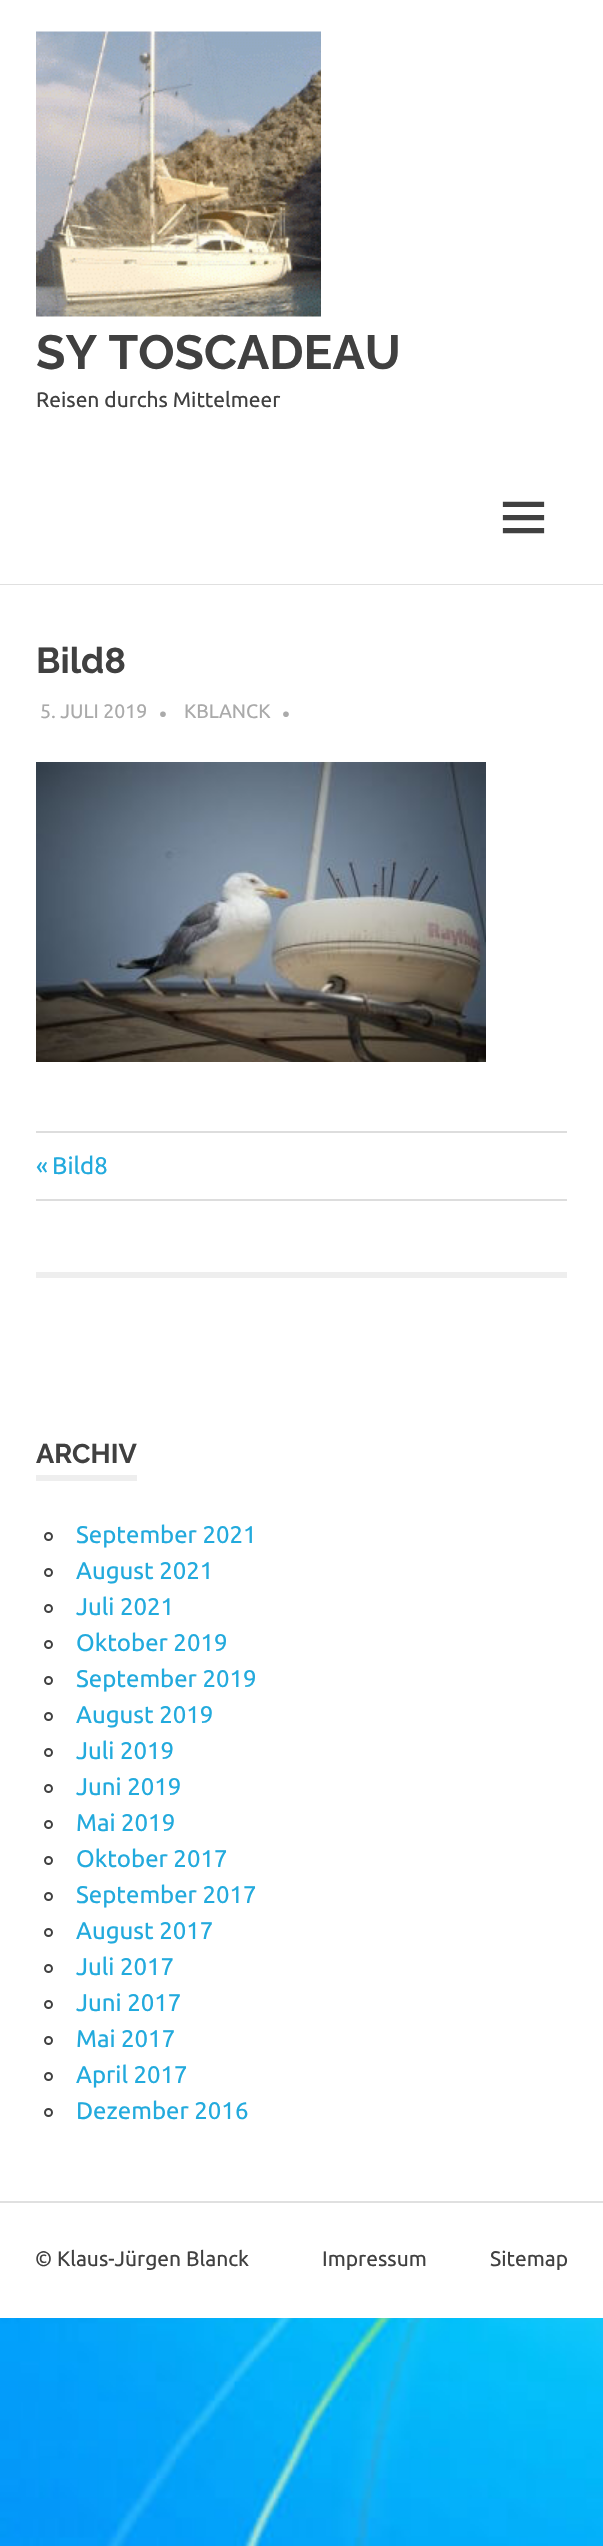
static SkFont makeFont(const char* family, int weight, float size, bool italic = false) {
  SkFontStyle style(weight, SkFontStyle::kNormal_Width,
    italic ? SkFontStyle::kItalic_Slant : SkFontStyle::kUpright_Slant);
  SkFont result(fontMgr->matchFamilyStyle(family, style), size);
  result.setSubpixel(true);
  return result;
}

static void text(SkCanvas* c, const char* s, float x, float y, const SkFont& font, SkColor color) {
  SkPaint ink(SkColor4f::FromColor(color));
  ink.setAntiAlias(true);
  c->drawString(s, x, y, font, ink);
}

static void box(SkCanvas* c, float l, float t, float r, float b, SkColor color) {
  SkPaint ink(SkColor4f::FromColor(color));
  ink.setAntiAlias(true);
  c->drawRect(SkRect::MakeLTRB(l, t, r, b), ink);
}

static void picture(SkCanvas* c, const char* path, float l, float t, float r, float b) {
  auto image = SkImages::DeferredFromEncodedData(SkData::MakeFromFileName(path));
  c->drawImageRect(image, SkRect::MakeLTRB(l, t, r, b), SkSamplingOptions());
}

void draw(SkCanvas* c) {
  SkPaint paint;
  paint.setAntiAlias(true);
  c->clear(0xffffffff);
  picture(c, "img_01.png", 0, 2318, 603, 2546);
  box(c, 0, 584, 603, 585, 0x1f000000);
  picture(c, "img_02.png", 36, 31, 321, 317);
  SkFont face1 = makeFont("Raleway", 700, 48);
  text(c, "SY TOSCADEAU", 36, 369, face1, 0xff404040);
  SkFont face2 = makeFont("Ubuntu", 400, 21);
  text(c, "Reisen durchs Mittelmeer", 36, 407, face2, 0xff404040);
  picture(c, "img_03.png", 502, 501, 545, 534);
  SkFont face3 = makeFont("Raleway", 700, 36);
  text(c, "Bild8", 36, 673, face3, 0xff404040);
  SkFont face4 = makeFont("Ubuntu", 400, 19.5f);
  text(c, "5. JULI 2019", 40, 718, face4, 0xffaaaaaa);
  SkFont face5 = makeFont("Ubuntu", 400, 22);
  text(c, "•", 159, 722, face5, 0xffaaaaaa);
  text(c, "KBLANCK", 184, 718, face4, 0xffaaaaaa);
  text(c, "•", 282, 722, face5, 0xffaaaaaa);
  picture(c, "img_04.png", 36, 762, 486, 1062);
  box(c, 36, 1131, 567, 1133, 0xffdddddd);
  box(c, 36, 1199, 567, 1201, 0xffdddddd);
  SkFont face6 = makeFont("Ubuntu", 400, 24);
  text(c, "«", 36, 1174, face6, 0xff22aadd);
  text(c, "Bild8", 52, 1174, face6, 0xff22aadd);
  box(c, 36, 1272, 567, 1278, 0xffeeeeee);
  box(c, 36, 1475, 137, 1481, 0xffeeeeee);
  SkFont face7 = makeFont("Raleway", 700, 27);
  text(c, "ARCHIV", 36, 1463, face7, 0xff404040);
  paint.setStyle(SkPaint::kStroke_Style);
  paint.setStrokeWidth(2);
  paint.setColor(0xff404040);
  c->drawCircle(48.5f, 1536.5f, 3.5f, paint);
  text(c, "September 2021", 76, 1543, face6, 0xff22aadd);
  c->drawCircle(48.5f, 1572.5f, 3.5f, paint);
  text(c, "August 2021", 76, 1579, face6, 0xff22aadd);
  c->drawCircle(48.5f, 1608.5f, 3.5f, paint);
  text(c, "Juli 2021", 76, 1615, face6, 0xff22aadd);
  c->drawCircle(48.5f, 1644.5f, 3.5f, paint);
  text(c, "Oktober 2019", 76, 1651, face6, 0xff22aadd);
  c->drawCircle(48.5f, 1680.5f, 3.5f, paint);
  text(c, "September 2019", 76, 1687, face6, 0xff22aadd);
  c->drawCircle(48.5f, 1716.5f, 3.5f, paint);
  text(c, "August 2019", 76, 1723, face6, 0xff22aadd);
  c->drawCircle(48.5f, 1752.5f, 3.5f, paint);
  text(c, "Juli 2019", 76, 1759, face6, 0xff22aadd);
  c->drawCircle(48.5f, 1788.5f, 3.5f, paint);
  text(c, "Juni 2019", 76, 1795, face6, 0xff22aadd);
  c->drawCircle(48.5f, 1824.5f, 3.5f, paint);
  text(c, "Mai 2019", 76, 1831, face6, 0xff22aadd);
  c->drawCircle(48.5f, 1860.5f, 3.5f, paint);
  text(c, "Oktober 2017", 76, 1867, face6, 0xff22aadd);
  c->drawCircle(48.5f, 1896.5f, 3.5f, paint);
  text(c, "September 2017", 76, 1903, face6, 0xff22aadd);
  c->drawCircle(48.5f, 1932.5f, 3.5f, paint);
  text(c, "August 2017", 76, 1939, face6, 0xff22aadd);
  c->drawCircle(48.5f, 1968.5f, 3.5f, paint);
  text(c, "Juli 2017", 76, 1975, face6, 0xff22aadd);
  c->drawCircle(48.5f, 2004.5f, 3.5f, paint);
  text(c, "Juni 2017", 76, 2011, face6, 0xff22aadd);
  c->drawCircle(48.5f, 2040.5f, 3.5f, paint);
  text(c, "Mai 2017", 76, 2047, face6, 0xff22aadd);
  c->drawCircle(48.5f, 2076.5f, 3.5f, paint);
  text(c, "April 2017", 76, 2083, face6, 0xff22aadd);
  c->drawCircle(48.5f, 2112.5f, 3.5f, paint);
  text(c, "Dezember 2016", 76, 2119, face6, 0xff22aadd);
  box(c, 0, 2201, 603, 2203, 0xffe0e0e0);
  text(c, "© Klaus-Jürgen Blanck", 35, 2266, face2, 0xff404040);
  text(c, "Impressum", 322, 2266, face2, 0xff404040);
  text(c, "Sitemap", 490, 2266, face2, 0xff404040);
}
